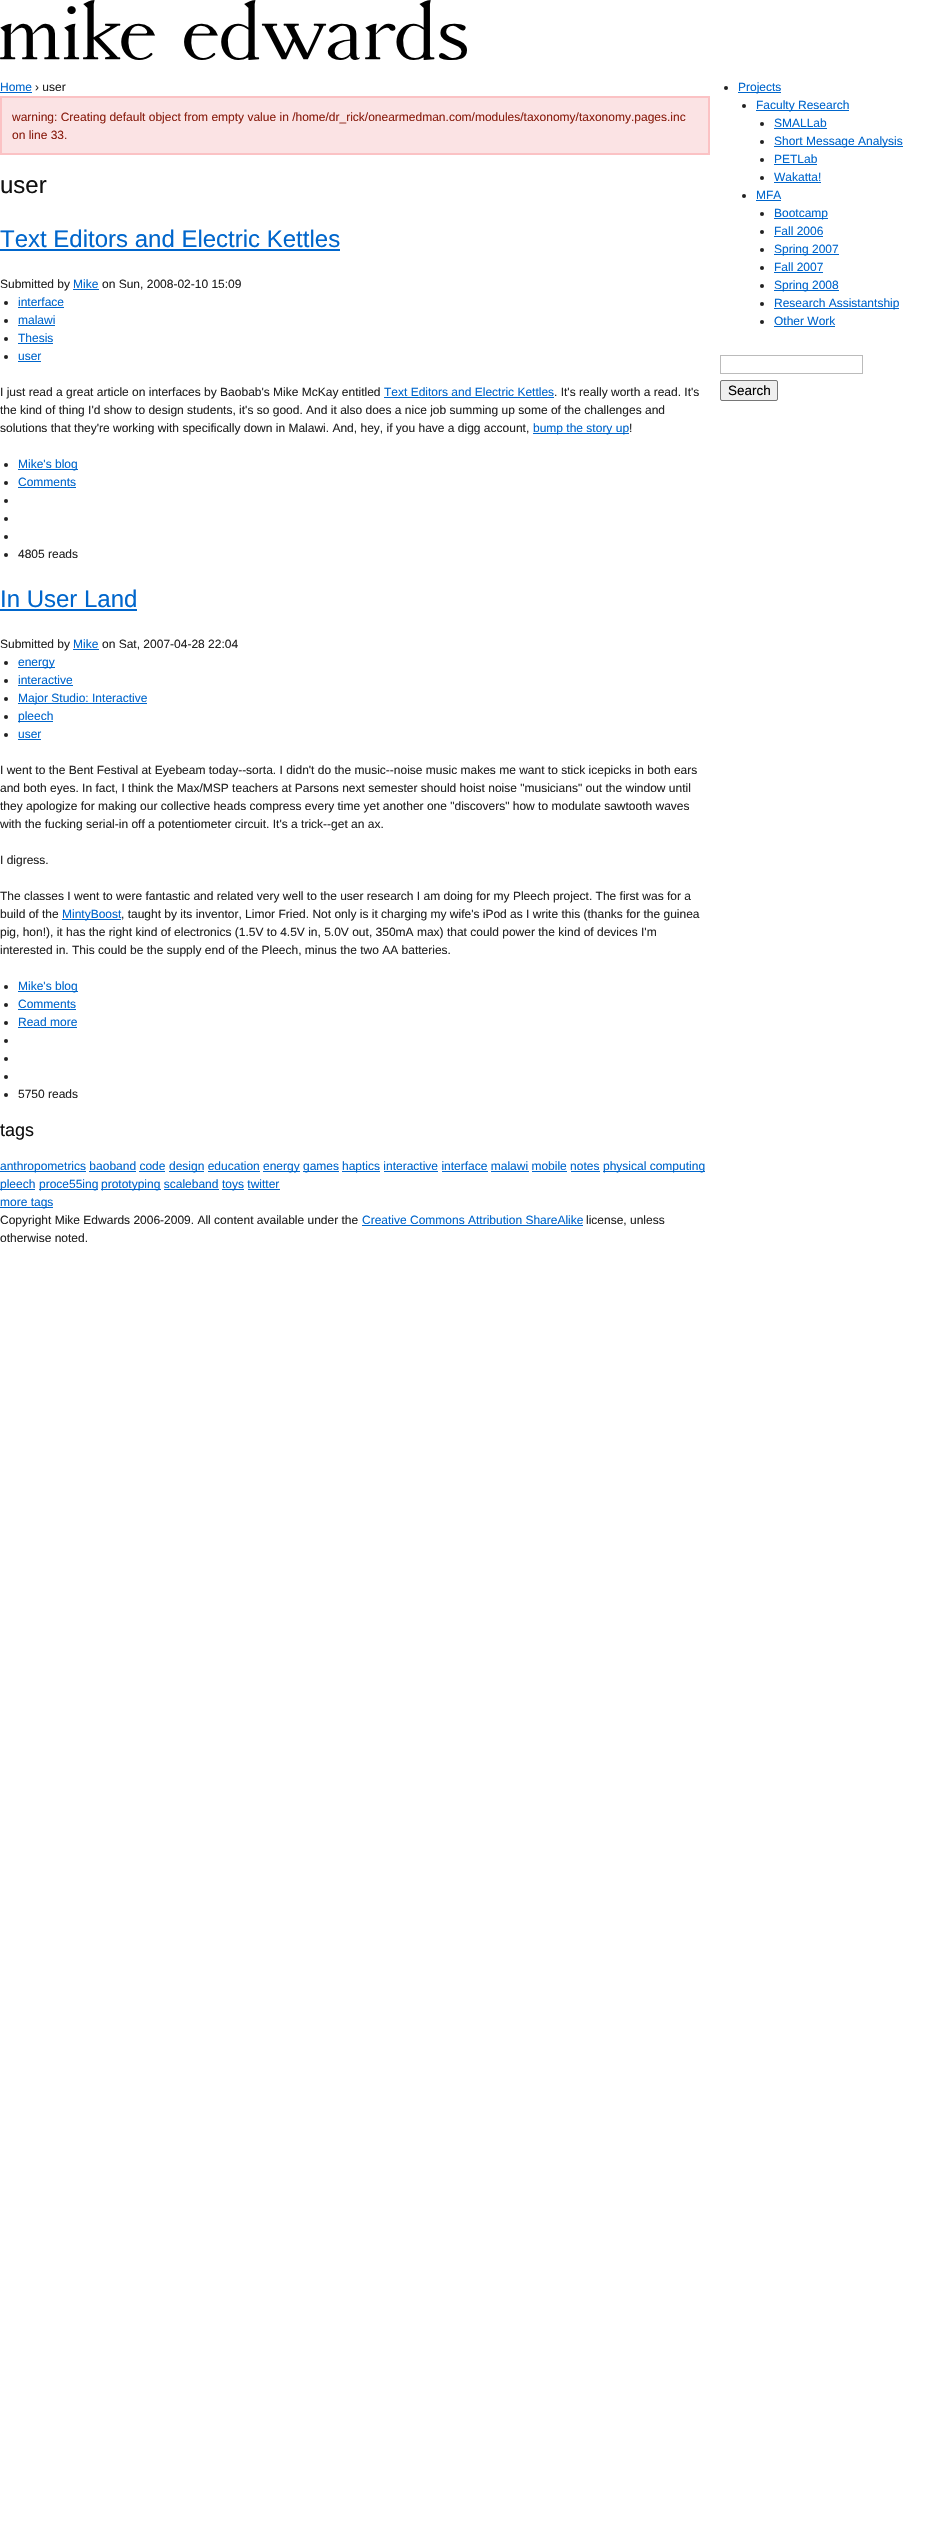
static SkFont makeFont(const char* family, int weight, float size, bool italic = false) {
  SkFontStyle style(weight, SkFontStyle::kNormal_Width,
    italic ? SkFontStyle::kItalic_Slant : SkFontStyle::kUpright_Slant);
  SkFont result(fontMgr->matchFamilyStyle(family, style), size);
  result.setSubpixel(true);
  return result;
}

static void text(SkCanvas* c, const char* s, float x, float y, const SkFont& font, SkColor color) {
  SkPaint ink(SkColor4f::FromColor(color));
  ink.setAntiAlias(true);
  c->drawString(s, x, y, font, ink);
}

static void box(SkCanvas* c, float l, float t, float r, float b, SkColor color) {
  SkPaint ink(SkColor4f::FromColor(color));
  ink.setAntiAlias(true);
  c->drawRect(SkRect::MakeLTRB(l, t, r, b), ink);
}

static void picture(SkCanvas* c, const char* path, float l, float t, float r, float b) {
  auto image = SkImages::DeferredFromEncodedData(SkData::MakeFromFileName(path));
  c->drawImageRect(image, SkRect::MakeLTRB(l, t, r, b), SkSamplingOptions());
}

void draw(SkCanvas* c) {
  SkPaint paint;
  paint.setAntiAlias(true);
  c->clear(0xffffffff);
  picture(c, "img_01.png", 0, 0, 467, 60);
  SkFont face1 = makeFont("Liberation Sans", 400, 12);
  text(c, "Home", 0, 91, face1, 0xff0066cc);
  box(c, 0, 92, 32, 93, 0xff0066cc);
  text(c, "› user", 35, 91, face1, 0xff222222);
  paint.setColor(0xfffbe3e4);
  c->drawRect(SkRect::MakeLTRB(1, 97, 709, 154), paint);
  paint.setStyle(SkPaint::kStroke_Style);
  paint.setStrokeWidth(2);
  paint.setColor(0xfffbc2c4);
  c->drawRect(SkRect::MakeLTRB(1, 97, 709, 154), paint);
  text(c, "warning: Creating default object from empty value in /home/dr_rick/onearmedman.com/modules/taxonomy/taxonomy.pages.inc", 12, 121, face1, 0xff8a1f11);
  text(c, "on line 33.", 12, 139, face1, 0xff8a1f11);
  SkFont face2 = makeFont("Liberation Sans", 400, 24);
  text(c, "user", 0, 193, face2, 0xff111111);
  text(c, "Text Editors and Electric Kettles", 0, 247, face2, 0xff0066cc);
  box(c, 0, 249, 340, 251, 0xff0066cc);
  text(c, "Submitted by", 0, 288, face1, 0xff222222);
  text(c, "Mike", 73, 288, face1, 0xff0066cc);
  box(c, 73, 289, 99, 290, 0xff0066cc);
  text(c, "on Sun, 2008-02-10 15:09", 102, 288, face1, 0xff222222);
  paint.setStyle(SkPaint::kFill_Style);
  paint.setColor(0xff222222);
  c->drawCircle(6, 303, 2, paint);
  text(c, "interface", 18, 306, face1, 0xff0066cc);
  box(c, 18, 307, 64, 308, 0xff0066cc);
  c->drawCircle(6, 321, 2, paint);
  text(c, "malawi", 18, 324, face1, 0xff0066cc);
  box(c, 18, 325, 55, 326, 0xff0066cc);
  c->drawCircle(6, 339, 2, paint);
  text(c, "Thesis", 18, 342, face1, 0xff0066cc);
  box(c, 18, 343, 53, 344, 0xff0066cc);
  c->drawCircle(6, 357, 2, paint);
  text(c, "user", 18, 360, face1, 0xff0066cc);
  box(c, 18, 361, 41, 362, 0xff0066cc);
  text(c, "I just read a great article on interfaces by Baobab's Mike McKay entitled", 0, 396, face1, 0xff222222);
  text(c, "Text Editors and Electric Kettles", 384, 396, face1, 0xff0066cc);
  box(c, 384, 397, 554, 398, 0xff0066cc);
  text(c, ". It's really worth a read. It's", 554, 396, face1, 0xff222222);
  text(c, "the kind of thing I'd show to design students, it's so good. And it also does a nice job summing up some of the challenges and", 0, 414, face1, 0xff222222);
  text(c, "solutions that they're working with specifically down in Malawi. And, hey, if you have a digg account,", 0, 432, face1, 0xff222222);
  box(c, 533, 433, 629, 434, 0xff0066cc);
  text(c, "bump the story up", 533, 432, face1, 0xff0066cc);
  text(c, "!", 629, 432, face1, 0xff222222);
  c->drawCircle(6, 465, 2, paint);
  box(c, 18, 469, 78, 470, 0xff0066cc);
  text(c, "Mike's blog", 18, 468, face1, 0xff0066cc);
  c->drawCircle(6, 483, 2, paint);
  text(c, "Comments", 18, 486, face1, 0xff0066cc);
  box(c, 18, 487, 76, 488, 0xff0066cc);
  c->drawCircle(6, 501, 2, paint);
  c->drawCircle(6, 519, 2, paint);
  c->drawCircle(6, 537, 2, paint);
  c->drawCircle(6, 555, 2, paint);
  text(c, "4805 reads", 18, 558, face1, 0xff222222);
  text(c, "In User Land", 0, 607, face2, 0xff0066cc);
  box(c, 0, 609, 137, 611, 0xff0066cc);
  text(c, "Submitted by", 0, 648, face1, 0xff222222);
  text(c, "Mike", 73, 648, face1, 0xff0066cc);
  box(c, 73, 649, 99, 650, 0xff0066cc);
  text(c, "on Sat, 2007-04-28 22:04", 102, 648, face1, 0xff222222);
  c->drawCircle(6, 663, 2, paint);
  box(c, 18, 667, 55, 668, 0xff0066cc);
  text(c, "energy", 18, 666, face1, 0xff0066cc);
  c->drawCircle(6, 681, 2, paint);
  text(c, "interactive", 18, 684, face1, 0xff0066cc);
  box(c, 18, 685, 73, 686, 0xff0066cc);
  c->drawCircle(6, 699, 2, paint);
  box(c, 18, 703, 147, 704, 0xff0066cc);
  text(c, "Major Studio: Interactive", 18, 702, face1, 0xff0066cc);
  c->drawCircle(6, 717, 2, paint);
  box(c, 18, 721, 53, 722, 0xff0066cc);
  text(c, "pleech", 18, 720, face1, 0xff0066cc);
  c->drawCircle(6, 735, 2, paint);
  text(c, "user", 18, 738, face1, 0xff0066cc);
  box(c, 18, 739, 41, 740, 0xff0066cc);
  text(c, "I went to the Bent Festival at Eyebeam today--sorta. I didn't do the music--noise music makes me want to stick icepicks in both ears", 0, 774, face1, 0xff222222);
  text(c, "and both eyes. In fact, I think the Max/MSP teachers at Parsons next semester should hoist noise \"musicians\" out the window until", 0, 792, face1, 0xff222222);
  text(c, "they apologize for making our collective heads compress every time yet another one \"discovers\" how to modulate sawtooth waves", 0, 810, face1, 0xff222222);
  text(c, "with the fucking serial-in off a potentiometer circuit. It's a trick--get an ax.", 0, 828, face1, 0xff222222);
  text(c, "I digress.", 0, 864, face1, 0xff222222);
  text(c, "The classes I went to were fantastic and related very well to the user research I am doing for my Pleech project. The first was for a", 0, 900, face1, 0xff222222);
  text(c, "build of the", 0, 918, face1, 0xff222222);
  box(c, 62, 919, 121, 920, 0xff0066cc);
  text(c, "MintyBoost", 62, 918, face1, 0xff0066cc);
  text(c, ", taught by its inventor, Limor Fried. Not only is it charging my wife's iPod as I write this (thanks for the guinea", 121, 918, face1, 0xff222222);
  text(c, "pig, hon!), it has the right kind of electronics (1.5V to 4.5V in, 5.0V out, 350mA max) that could power the kind of devices I'm", 0, 936, face1, 0xff222222);
  text(c, "interested in. This could be the supply end of the Pleech, minus the two AA batteries.", 0, 954, face1, 0xff222222);
  c->drawCircle(6, 987, 2, paint);
  box(c, 18, 991, 78, 992, 0xff0066cc);
  text(c, "Mike's blog", 18, 990, face1, 0xff0066cc);
  c->drawCircle(6, 1005, 2, paint);
  text(c, "Comments", 18, 1008, face1, 0xff0066cc);
  box(c, 18, 1009, 76, 1010, 0xff0066cc);
  c->drawCircle(6, 1023, 2, paint);
  text(c, "Read more", 18, 1026, face1, 0xff0066cc);
  box(c, 18, 1027, 77, 1028, 0xff0066cc);
  c->drawCircle(6, 1041, 2, paint);
  c->drawCircle(6, 1059, 2, paint);
  c->drawCircle(6, 1077, 2, paint);
  c->drawCircle(6, 1095, 2, paint);
  text(c, "5750 reads", 18, 1098, face1, 0xff222222);
  SkFont face3 = makeFont("Liberation Sans", 400, 18);
  text(c, "tags", 0, 1136, face3, 0xff111111);
  box(c, 0, 1171, 86, 1172, 0xff0066cc);
  text(c, "anthropometrics baoband code", 0, 1170, face1, 0xff0066cc);
  box(c, 169, 1171, 204, 1172, 0xff0066cc);
  text(c, "design education", 169, 1170, face1, 0xff0066cc);
  box(c, 263, 1171, 300, 1172, 0xff0066cc);
  text(c, "energy", 263, 1170, face1, 0xff0066cc);
  box(c, 303, 1171, 339, 1172, 0xff0066cc);
  text(c, "games", 303, 1170, face1, 0xff0066cc);
  box(c, 342, 1171, 380, 1172, 0xff0066cc);
  text(c, "haptics interactive interface malawi mobile notes", 342, 1170, face1, 0xff0066cc);
  box(c, 603, 1171, 705, 1172, 0xff0066cc);
  text(c, "physical computing", 603, 1170, face1, 0xff0066cc);
  box(c, 89, 1171, 136, 1172, 0xff0066cc);
  box(c, 139, 1171, 165, 1172, 0xff0066cc);
  box(c, 208, 1171, 260, 1172, 0xff0066cc);
  box(c, 384, 1171, 438, 1172, 0xff0066cc);
  box(c, 442, 1171, 488, 1172, 0xff0066cc);
  box(c, 491, 1171, 529, 1172, 0xff0066cc);
  box(c, 532, 1171, 567, 1172, 0xff0066cc);
  box(c, 571, 1171, 600, 1172, 0xff0066cc);
  box(c, 0, 1189, 35, 1190, 0xff0066cc);
  text(c, "pleech", 0, 1188, face1, 0xff0066cc);
  box(c, 39, 1189, 98, 1190, 0xff0066cc);
  text(c, "proce55ing", 39, 1188, face1, 0xff0066cc);
  box(c, 101, 1189, 161, 1190, 0xff0066cc);
  text(c, "prototyping scaleband", 101, 1188, face1, 0xff0066cc);
  box(c, 222, 1189, 244, 1190, 0xff0066cc);
  text(c, "toys twitter", 222, 1188, face1, 0xff0066cc);
  box(c, 164, 1189, 219, 1190, 0xff0066cc);
  box(c, 248, 1189, 280, 1190, 0xff0066cc);
  box(c, 0, 1207, 53, 1208, 0xff0066cc);
  text(c, "more tags", 0, 1206, face1, 0xff0066cc);
  text(c, "Copyright Mike Edwards 2006-2009. All content available under the", 0, 1224, face1, 0xff222222);
  text(c, "Creative Commons Attribution ShareAlike", 362, 1224, face1, 0xff0066cc);
  box(c, 362, 1225, 583, 1226, 0xff0066cc);
  text(c, "license, unless", 586, 1224, face1, 0xff222222);
  text(c, "otherwise noted.", 0, 1242, face1, 0xff222222);
  c->drawCircle(726, 88, 2, paint);
  box(c, 738, 92, 781, 93, 0xff0066cc);
  text(c, "Projects", 738, 91, face1, 0xff0066cc);
  c->drawCircle(744, 106, 2, paint);
  box(c, 756, 110, 849, 111, 0xff0066cc);
  text(c, "Faculty Research", 756, 109, face1, 0xff0066cc);
  c->drawCircle(762, 124, 2, paint);
  text(c, "SMALLab", 774, 127, face1, 0xff0066cc);
  box(c, 774, 128, 827, 129, 0xff0066cc);
  c->drawCircle(762, 142, 2, paint);
  box(c, 774, 146, 903, 147, 0xff0066cc);
  text(c, "Short Message Analysis", 774, 145, face1, 0xff0066cc);
  c->drawCircle(762, 160, 2, paint);
  text(c, "PETLab", 774, 163, face1, 0xff0066cc);
  box(c, 774, 164, 817, 165, 0xff0066cc);
  c->drawCircle(762, 178, 2, paint);
  text(c, "Wakatta!", 774, 181, face1, 0xff0066cc);
  box(c, 774, 182, 821, 183, 0xff0066cc);
  c->drawCircle(744, 196, 2, paint);
  text(c, "MFA", 756, 199, face1, 0xff0066cc);
  box(c, 756, 200, 781, 201, 0xff0066cc);
  c->drawCircle(762, 214, 2, paint);
  box(c, 774, 218, 828, 219, 0xff0066cc);
  text(c, "Bootcamp", 774, 217, face1, 0xff0066cc);
  c->drawCircle(762, 232, 2, paint);
  text(c, "Fall 2006", 774, 235, face1, 0xff0066cc);
  box(c, 774, 236, 823, 237, 0xff0066cc);
  c->drawCircle(762, 250, 2, paint);
  box(c, 774, 254, 839, 255, 0xff0066cc);
  text(c, "Spring 2007", 774, 253, face1, 0xff0066cc);
  c->drawCircle(762, 268, 2, paint);
  text(c, "Fall 2007", 774, 271, face1, 0xff0066cc);
  box(c, 774, 272, 823, 273, 0xff0066cc);
  c->drawCircle(762, 286, 2, paint);
  box(c, 774, 290, 839, 291, 0xff0066cc);
  text(c, "Spring 2008", 774, 289, face1, 0xff0066cc);
  c->drawCircle(762, 304, 2, paint);
  box(c, 774, 308, 899, 309, 0xff0066cc);
  text(c, "Research Assistantship", 774, 307, face1, 0xff0066cc);
  c->drawCircle(762, 322, 2, paint);
  text(c, "Other Work", 774, 325, face1, 0xff0066cc);
  box(c, 774, 326, 835, 327, 0xff0066cc);
  paint.setStyle(SkPaint::kStroke_Style);
  paint.setStrokeWidth(1);
  paint.setColor(0xffbbbbbb);
  c->drawRect(SkRect::MakeLTRB(720.5f, 355.5f, 862.5f, 373.5f), paint);
  paint.setStyle(SkPaint::kFill_Style);
  paint.setColor(0xffefefef);
  c->drawRoundRect(SkRect::MakeLTRB(720.5f, 380.5f, 777.5f, 400.5f), 1.5f, 1.5f, paint);
  paint.setStyle(SkPaint::kStroke_Style);
  paint.setColor(0xff767676);
  c->drawRoundRect(SkRect::MakeLTRB(720.5f, 380.5f, 777.5f, 400.5f), 1.5f, 1.5f, paint);
  SkFont face4 = makeFont("Liberation Sans", 400, 13.5f);
  text(c, "Search", 728, 395, face4, 0xff000000);
}
